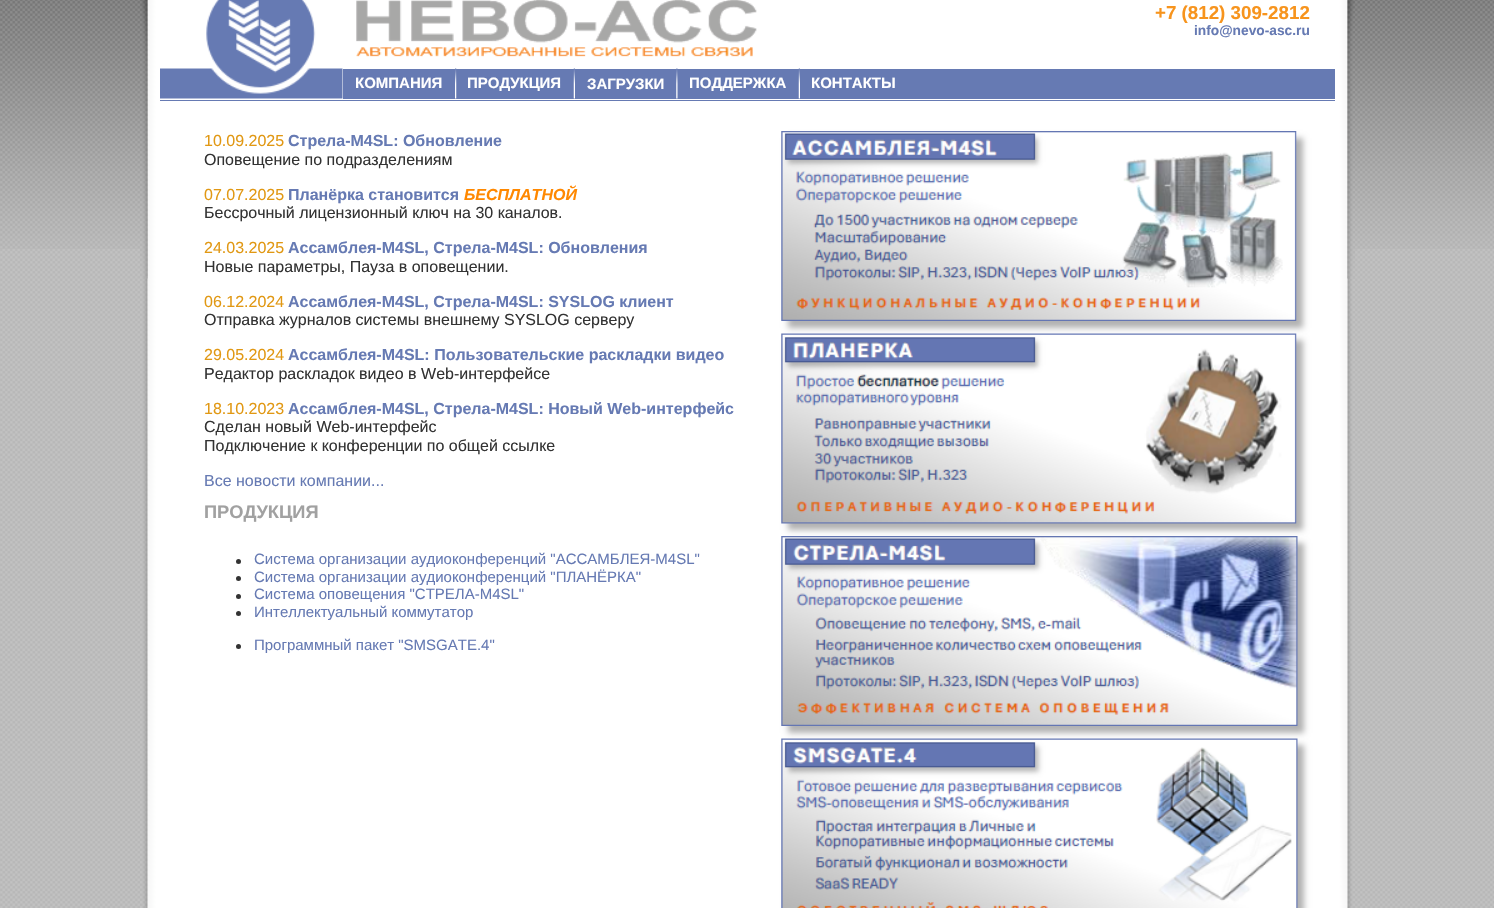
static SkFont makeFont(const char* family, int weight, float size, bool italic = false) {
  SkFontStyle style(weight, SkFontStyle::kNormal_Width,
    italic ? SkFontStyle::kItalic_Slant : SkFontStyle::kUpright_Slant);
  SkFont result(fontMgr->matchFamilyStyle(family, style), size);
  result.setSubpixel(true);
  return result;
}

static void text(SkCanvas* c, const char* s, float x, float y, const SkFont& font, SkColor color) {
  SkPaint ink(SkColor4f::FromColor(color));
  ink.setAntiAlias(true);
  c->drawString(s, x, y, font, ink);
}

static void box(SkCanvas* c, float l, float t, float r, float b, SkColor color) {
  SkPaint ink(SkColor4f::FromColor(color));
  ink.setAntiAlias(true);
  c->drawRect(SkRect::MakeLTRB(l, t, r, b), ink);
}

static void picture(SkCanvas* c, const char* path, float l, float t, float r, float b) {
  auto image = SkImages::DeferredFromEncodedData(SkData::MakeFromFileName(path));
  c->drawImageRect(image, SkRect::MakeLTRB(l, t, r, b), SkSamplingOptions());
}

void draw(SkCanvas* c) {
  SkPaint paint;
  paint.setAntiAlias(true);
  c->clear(0xffffffff);
  picture(c, "img_01.png", 0, 249, 1494, 908);
  picture(c, "img_02.png", 0, 0, 1494, 249);
  picture(c, "img_03.png", 140, 0, 1355, 908);
  picture(c, "img_04.png", 140, 0, 148, 279);
  picture(c, "img_05.png", 1347, 0, 1355, 279);
  picture(c, "img_06.png", 160, 0, 343, 99);
  picture(c, "img_07.png", 356, 0, 757, 57);
  SkFont face1 = makeFont("Liberation Sans", 700, 18.75f);
  text(c, "+7 (812) 309-2812", 1155, 19, face1, 0xfff7941d);
  SkFont face2 = makeFont("Liberation Sans", 700, 13.75f);
  text(c, "info@nevo-asc.ru", 1194, 35, face2, 0xff667ab3);
  box(c, 343, 69, 1335, 99, 0xff667ab3);
  SkFont face3 = makeFont("Liberation Sans", 700, 15);
  text(c, "КОМПАНИЯ", 355, 88, face3, 0xffffffff);
  picture(c, "img_08.png", 455, 68, 457, 99);
  text(c, "ПРОДУКЦИЯ", 467, 88, face3, 0xffffffff);
  picture(c, "img_09.png", 573, 68, 575, 99);
  text(c, "ЗАГРУЗКИ", 587, 89, face3, 0xffffffff);
  picture(c, "img_10.png", 676, 68, 678, 99);
  text(c, "ПОДДЕРЖКА", 689, 88, face3, 0xffffffff);
  picture(c, "img_09.png", 798, 68, 800, 99);
  text(c, "КОНТАКТЫ", 811, 88, face3, 0xffffffff);
  box(c, 160, 100, 1335, 101, 0xff667ab3);
  SkFont face4 = makeFont("Liberation Sans", 400, 16);
  text(c, "10.09.2025", 204, 146, face4, 0xffe19813);
  SkFont face5 = makeFont("Liberation Sans", 700, 16);
  text(c, "Стрела-M4SL: Обновление", 288, 146, face5, 0xff667ab3);
  text(c, "Оповещение по подразделениям", 204, 165, face4, 0xff333333);
  text(c, "07.07.2025", 204, 200, face4, 0xffe19813);
  text(c, "Планёрка становится", 288, 200, face5, 0xff667ab3);
  SkFont face6 = makeFont("Liberation Sans", 700, 16, true);
  text(c, "БЕСПЛАТНОЙ", 464, 200, face6, 0xffff8800);
  text(c, "Бессрочный лицензионный ключ на 30 каналов.", 204, 218, face4, 0xff333333);
  text(c, "24.03.2025", 204, 253, face4, 0xffe19813);
  text(c, "Ассамблея-M4SL, Стрела-M4SL: Обновления", 288, 253, face5, 0xff667ab3);
  text(c, "Новые параметры, Пауза в оповещении.", 204, 272, face4, 0xff333333);
  text(c, "06.12.2024", 204, 307, face4, 0xffe19813);
  text(c, "Ассамблея-M4SL, Стрела-M4SL: SYSLOG клиент", 288, 307, face5, 0xff667ab3);
  text(c, "Отправка журналов системы внешнему SYSLOG серверу", 204, 325, face4, 0xff333333);
  text(c, "29.05.2024", 204, 360, face4, 0xffe19813);
  text(c, "Ассамблея-M4SL: Пользовательские раскладки видео", 288, 360, face5, 0xff667ab3);
  text(c, "Редактор раскладок видео в Web-интерфейсе", 204, 379, face4, 0xff333333);
  text(c, "18.10.2023", 204, 414, face4, 0xffe19813);
  text(c, "Ассамблея-M4SL, Стрела-M4SL: Новый Web-интерфейс", 288, 414, face5, 0xff667ab3);
  text(c, "Сделан новый Web-интерфейс", 204, 432, face4, 0xff333333);
  text(c, "Подключение к конференции по общей ссылке", 204, 451, face4, 0xff333333);
  text(c, "Все новости компании...", 204, 486, face4, 0xff667ab3);
  SkFont face7 = makeFont("Liberation Sans", 700, 18.25f);
  text(c, "ПРОДУКЦИЯ", 204, 518, face7, 0xffa1a1a1);
  paint.setColor(0xff333333);
  c->drawCircle(238.5f, 561.5f, 2.5f, paint);
  SkFont face8 = makeFont("Liberation Sans", 400, 15);
  text(c, "Система организации аудиоконференций \"АССАМБЛЕЯ-M4SL\"", 254, 564, face8, 0xff667ab3);
  c->drawCircle(238.5f, 578.5f, 2.5f, paint);
  text(c, "Система организации аудиоконференций \"ПЛАНЁРКА\"", 254, 582, face8, 0xff667ab3);
  c->drawCircle(238.5f, 596.5f, 2.5f, paint);
  text(c, "Система оповещения \"СТРЕЛА-M4SL\"", 254, 599, face8, 0xff667ab3);
  c->drawCircle(238.5f, 613.5f, 2.5f, paint);
  text(c, "Интеллектуальный коммутатор", 254, 617, face8, 0xff667ab3);
  c->drawCircle(238.5f, 646.5f, 2.5f, paint);
  text(c, "Программный пакет \"SMSGATE.4\"", 254, 650, face8, 0xff667ab3);
  paint.setColor(0x4d000000);
  paint.setMaskFilter(SkMaskFilter::MakeBlur(kNormal_SkBlurStyle, 3));
  c->drawRect(SkRect::MakeLTRB(788, 138, 1303, 328), paint);
  paint.setMaskFilter(nullptr);
  picture(c, "img_11.png", 781, 131, 1297, 321);
  paint.setMaskFilter(SkMaskFilter::MakeBlur(kNormal_SkBlurStyle, 3));
  c->drawRect(SkRect::MakeLTRB(788, 340, 1303, 530), paint);
  paint.setMaskFilter(nullptr);
  picture(c, "img_12.png", 781, 333, 1297, 524);
  paint.setMaskFilter(SkMaskFilter::MakeBlur(kNormal_SkBlurStyle, 3));
  c->drawRect(SkRect::MakeLTRB(788, 543, 1304, 733), paint);
  paint.setMaskFilter(nullptr);
  picture(c, "img_13.png", 781, 536, 1298, 726);
  paint.setMaskFilter(SkMaskFilter::MakeBlur(kNormal_SkBlurStyle, 3));
  c->drawRect(SkRect::MakeLTRB(788, 745, 1304, 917), paint);
  paint.setMaskFilter(nullptr);
  picture(c, "img_14.png", 781, 738, 1298, 908);
}
